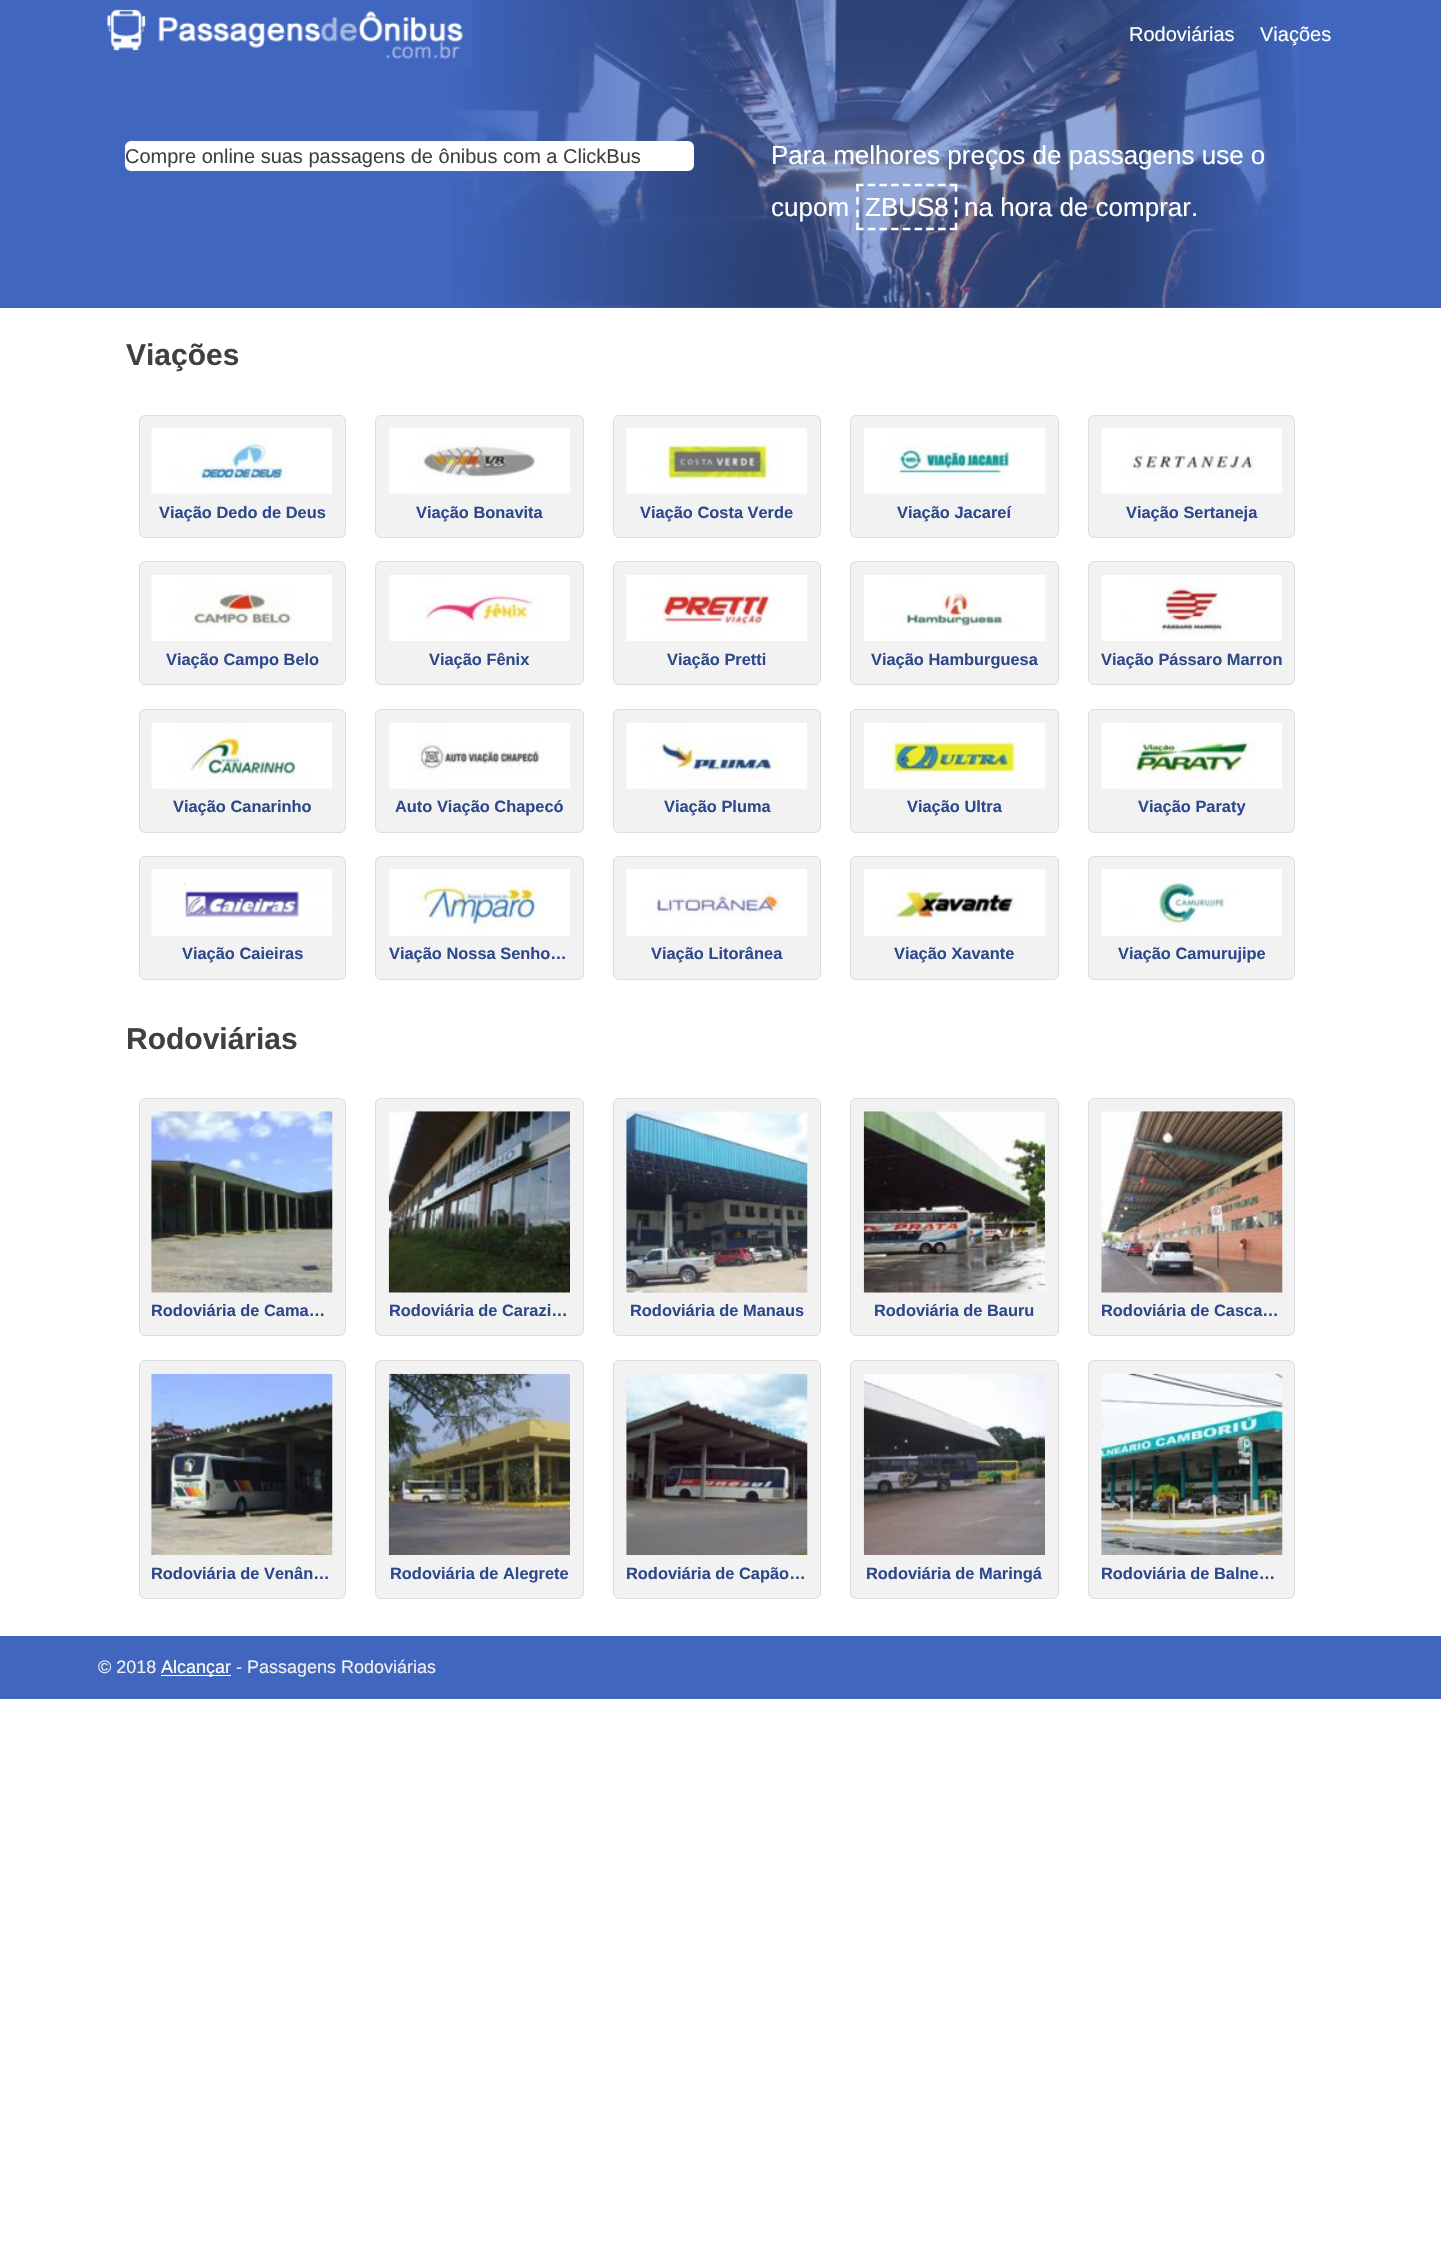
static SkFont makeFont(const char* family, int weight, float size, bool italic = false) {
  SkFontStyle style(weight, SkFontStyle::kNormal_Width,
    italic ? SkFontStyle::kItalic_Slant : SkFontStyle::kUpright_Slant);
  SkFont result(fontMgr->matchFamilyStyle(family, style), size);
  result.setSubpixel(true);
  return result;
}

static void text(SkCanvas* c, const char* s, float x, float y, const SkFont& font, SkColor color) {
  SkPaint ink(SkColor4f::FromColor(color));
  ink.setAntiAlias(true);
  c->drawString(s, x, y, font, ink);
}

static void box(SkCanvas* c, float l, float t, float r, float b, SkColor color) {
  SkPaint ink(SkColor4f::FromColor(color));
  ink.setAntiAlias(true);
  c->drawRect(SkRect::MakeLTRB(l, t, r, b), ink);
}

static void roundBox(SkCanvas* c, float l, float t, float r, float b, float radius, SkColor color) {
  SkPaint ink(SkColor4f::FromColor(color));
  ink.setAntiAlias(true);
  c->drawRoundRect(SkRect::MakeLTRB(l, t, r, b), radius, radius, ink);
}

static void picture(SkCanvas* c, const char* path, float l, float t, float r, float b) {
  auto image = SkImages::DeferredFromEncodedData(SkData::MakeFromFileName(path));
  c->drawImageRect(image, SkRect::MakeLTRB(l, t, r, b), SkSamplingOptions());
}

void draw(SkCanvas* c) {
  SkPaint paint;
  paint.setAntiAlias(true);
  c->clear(0xffffffff);
  box(c, 0, 0, 1441, 308, 0xff4066bf);
  picture(c, "img_01.png", 453, 0, 1299, 308);
  picture(c, "img_02.png", 107, 0, 472, 70);
  SkFont face1 = makeFont("Liberation Sans", 400, 20);
  text(c, "Rodoviárias", 1129, 41, face1, 0xffffffff);
  text(c, "Viações", 1260, 41, face1, 0xffffffff);
  roundBox(c, 125, 141, 694, 171, 6, 0xffffffff);
  text(c, "Compre online suas passagens de ônibus com a ClickBus", 125, 163, face1, 0xff404040);
  SkFont face2 = makeFont("Liberation Sans", 400, 26);
  text(c, "Para melhores preços de passagens use o", 771, 164, face2, 0xffffffff);
  text(c, "cupom", 771, 216, face2, 0xffffffff);
  text(c, "ZBUS8", 865, 216, face2, 0xffffffff);
  paint.setStyle(SkPaint::kStroke_Style);
  paint.setStrokeWidth(2.5f);
  paint.setColor(0xffffffff);
  paint.setPathEffect(SkDashPathEffect::Make({{7.5f, 4.22f}}, 0));
  c->drawPath(SkPathBuilder().moveTo(856, 185).lineTo(957.5f, 185).detach(), paint);
  paint.setPathEffect(nullptr);
  paint.setPathEffect(SkDashPathEffect::Make({{7.5f, 5.41f}}, 0));
  c->drawPath(SkPathBuilder().moveTo(956, 184).lineTo(956, 230).detach(), paint);
  paint.setPathEffect(nullptr);
  paint.setPathEffect(SkDashPathEffect::Make({{7.5f, 4.22f}}, 0));
  c->drawPath(SkPathBuilder().moveTo(856, 229).lineTo(957.5f, 229).detach(), paint);
  paint.setPathEffect(nullptr);
  paint.setPathEffect(SkDashPathEffect::Make({{7.5f, 5.41f}}, 0));
  c->drawPath(SkPathBuilder().moveTo(857.5f, 184).lineTo(857.5f, 230).detach(), paint);
  paint.setPathEffect(nullptr);
  text(c, "na hora de comprar.", 964, 216, face2, 0xffffffff);
  SkFont face3 = makeFont("Liberation Sans", 700, 30);
  text(c, "Viações", 126, 365, face3, 0xff404040);
  paint.setStyle(SkPaint::kFill_Style);
  paint.setColor(0xfff2f2f2);
  c->drawRoundRect(SkRect::MakeLTRB(139.5f, 415.5f, 345.5f, 537.5f), 5.5f, 5.5f, paint);
  paint.setStyle(SkPaint::kStroke_Style);
  paint.setStrokeWidth(1);
  paint.setColor(0xffdddddd);
  c->drawRoundRect(SkRect::MakeLTRB(139.5f, 415.5f, 345.5f, 537.5f), 5.5f, 5.5f, paint);
  picture(c, "img_03.png", 151, 428, 332, 494);
  SkFont face4 = makeFont("Liberation Sans", 700, 16.4f);
  text(c, "Viação Dedo de Deus", 159, 518, face4, 0xff2e498b);
  paint.setStyle(SkPaint::kFill_Style);
  paint.setColor(0xfff2f2f2);
  c->drawRoundRect(SkRect::MakeLTRB(375.5f, 415.5f, 583.5f, 537.5f), 5.5f, 5.5f, paint);
  paint.setStyle(SkPaint::kStroke_Style);
  paint.setColor(0xffdddddd);
  c->drawRoundRect(SkRect::MakeLTRB(375.5f, 415.5f, 583.5f, 537.5f), 5.5f, 5.5f, paint);
  picture(c, "img_04.png", 389, 428, 570, 494);
  text(c, "Viação Bonavita", 416, 518, face4, 0xff2e498b);
  paint.setStyle(SkPaint::kFill_Style);
  paint.setColor(0xfff2f2f2);
  c->drawRoundRect(SkRect::MakeLTRB(613.5f, 415.5f, 820.5f, 537.5f), 5.5f, 5.5f, paint);
  paint.setStyle(SkPaint::kStroke_Style);
  paint.setColor(0xffdddddd);
  c->drawRoundRect(SkRect::MakeLTRB(613.5f, 415.5f, 820.5f, 537.5f), 5.5f, 5.5f, paint);
  picture(c, "img_05.png", 626, 428, 807, 494);
  text(c, "Viação Costa Verde", 640, 518, face4, 0xff2e498b);
  paint.setStyle(SkPaint::kFill_Style);
  paint.setColor(0xfff2f2f2);
  c->drawRoundRect(SkRect::MakeLTRB(850.5f, 415.5f, 1058.5f, 537.5f), 5.5f, 5.5f, paint);
  paint.setStyle(SkPaint::kStroke_Style);
  paint.setColor(0xffdddddd);
  c->drawRoundRect(SkRect::MakeLTRB(850.5f, 415.5f, 1058.5f, 537.5f), 5.5f, 5.5f, paint);
  picture(c, "img_06.png", 864, 428, 1045, 494);
  text(c, "Viação Jacareí", 897, 518, face4, 0xff2e498b);
  paint.setStyle(SkPaint::kFill_Style);
  paint.setColor(0xfff2f2f2);
  c->drawRoundRect(SkRect::MakeLTRB(1088.5f, 415.5f, 1294.5f, 537.5f), 5.5f, 5.5f, paint);
  paint.setStyle(SkPaint::kStroke_Style);
  paint.setColor(0xffdddddd);
  c->drawRoundRect(SkRect::MakeLTRB(1088.5f, 415.5f, 1294.5f, 537.5f), 5.5f, 5.5f, paint);
  picture(c, "img_07.png", 1101, 428, 1282, 494);
  text(c, "Viação Sertaneja", 1126, 518, face4, 0xff2e498b);
  paint.setStyle(SkPaint::kFill_Style);
  paint.setColor(0xfff2f2f2);
  c->drawRoundRect(SkRect::MakeLTRB(139.5f, 561.5f, 345.5f, 684.5f), 5.5f, 5.5f, paint);
  paint.setStyle(SkPaint::kStroke_Style);
  paint.setColor(0xffdddddd);
  c->drawRoundRect(SkRect::MakeLTRB(139.5f, 561.5f, 345.5f, 684.5f), 5.5f, 5.5f, paint);
  picture(c, "img_08.png", 151, 575, 332, 641);
  text(c, "Viação Campo Belo", 166, 665, face4, 0xff2e498b);
  paint.setStyle(SkPaint::kFill_Style);
  paint.setColor(0xfff2f2f2);
  c->drawRoundRect(SkRect::MakeLTRB(375.5f, 561.5f, 583.5f, 684.5f), 5.5f, 5.5f, paint);
  paint.setStyle(SkPaint::kStroke_Style);
  paint.setColor(0xffdddddd);
  c->drawRoundRect(SkRect::MakeLTRB(375.5f, 561.5f, 583.5f, 684.5f), 5.5f, 5.5f, paint);
  picture(c, "img_09.png", 389, 575, 570, 641);
  text(c, "Viação Fênix", 429, 665, face4, 0xff2e498b);
  paint.setStyle(SkPaint::kFill_Style);
  paint.setColor(0xfff2f2f2);
  c->drawRoundRect(SkRect::MakeLTRB(613.5f, 561.5f, 820.5f, 684.5f), 5.5f, 5.5f, paint);
  paint.setStyle(SkPaint::kStroke_Style);
  paint.setColor(0xffdddddd);
  c->drawRoundRect(SkRect::MakeLTRB(613.5f, 561.5f, 820.5f, 684.5f), 5.5f, 5.5f, paint);
  picture(c, "img_10.png", 626, 575, 807, 641);
  text(c, "Viação Pretti", 667, 665, face4, 0xff2e498b);
  paint.setStyle(SkPaint::kFill_Style);
  paint.setColor(0xfff2f2f2);
  c->drawRoundRect(SkRect::MakeLTRB(850.5f, 561.5f, 1058.5f, 684.5f), 5.5f, 5.5f, paint);
  paint.setStyle(SkPaint::kStroke_Style);
  paint.setColor(0xffdddddd);
  c->drawRoundRect(SkRect::MakeLTRB(850.5f, 561.5f, 1058.5f, 684.5f), 5.5f, 5.5f, paint);
  picture(c, "img_11.png", 864, 575, 1045, 641);
  text(c, "Viação Hamburguesa", 871, 665, face4, 0xff2e498b);
  paint.setStyle(SkPaint::kFill_Style);
  paint.setColor(0xfff2f2f2);
  c->drawRoundRect(SkRect::MakeLTRB(1088.5f, 561.5f, 1294.5f, 684.5f), 5.5f, 5.5f, paint);
  paint.setStyle(SkPaint::kStroke_Style);
  paint.setColor(0xffdddddd);
  c->drawRoundRect(SkRect::MakeLTRB(1088.5f, 561.5f, 1294.5f, 684.5f), 5.5f, 5.5f, paint);
  picture(c, "img_12.png", 1101, 575, 1282, 641);
  text(c, "Viação Pássaro Marron", 1101, 665, face4, 0xff2e498b);
  paint.setStyle(SkPaint::kFill_Style);
  paint.setColor(0xfff2f2f2);
  c->drawRoundRect(SkRect::MakeLTRB(139.5f, 709.5f, 345.5f, 832.5f), 5.5f, 5.5f, paint);
  paint.setStyle(SkPaint::kStroke_Style);
  paint.setColor(0xffdddddd);
  c->drawRoundRect(SkRect::MakeLTRB(139.5f, 709.5f, 345.5f, 832.5f), 5.5f, 5.5f, paint);
  picture(c, "img_13.png", 151, 723, 332, 789);
  text(c, "Viação Canarinho", 173, 812, face4, 0xff2e498b);
  paint.setStyle(SkPaint::kFill_Style);
  paint.setColor(0xfff2f2f2);
  c->drawRoundRect(SkRect::MakeLTRB(375.5f, 709.5f, 583.5f, 832.5f), 5.5f, 5.5f, paint);
  paint.setStyle(SkPaint::kStroke_Style);
  paint.setColor(0xffdddddd);
  c->drawRoundRect(SkRect::MakeLTRB(375.5f, 709.5f, 583.5f, 832.5f), 5.5f, 5.5f, paint);
  picture(c, "img_14.png", 389, 723, 570, 789);
  text(c, "Auto Viação Chapecó", 395, 812, face4, 0xff2e498b);
  paint.setStyle(SkPaint::kFill_Style);
  paint.setColor(0xfff2f2f2);
  c->drawRoundRect(SkRect::MakeLTRB(613.5f, 709.5f, 820.5f, 832.5f), 5.5f, 5.5f, paint);
  paint.setStyle(SkPaint::kStroke_Style);
  paint.setColor(0xffdddddd);
  c->drawRoundRect(SkRect::MakeLTRB(613.5f, 709.5f, 820.5f, 832.5f), 5.5f, 5.5f, paint);
  picture(c, "img_15.png", 626, 723, 807, 789);
  text(c, "Viação Pluma", 664, 812, face4, 0xff2e498b);
  paint.setStyle(SkPaint::kFill_Style);
  paint.setColor(0xfff2f2f2);
  c->drawRoundRect(SkRect::MakeLTRB(850.5f, 709.5f, 1058.5f, 832.5f), 5.5f, 5.5f, paint);
  paint.setStyle(SkPaint::kStroke_Style);
  paint.setColor(0xffdddddd);
  c->drawRoundRect(SkRect::MakeLTRB(850.5f, 709.5f, 1058.5f, 832.5f), 5.5f, 5.5f, paint);
  picture(c, "img_16.png", 864, 723, 1045, 789);
  text(c, "Viação Ultra", 907, 812, face4, 0xff2e498b);
  paint.setStyle(SkPaint::kFill_Style);
  paint.setColor(0xfff2f2f2);
  c->drawRoundRect(SkRect::MakeLTRB(1088.5f, 709.5f, 1294.5f, 832.5f), 5.5f, 5.5f, paint);
  paint.setStyle(SkPaint::kStroke_Style);
  paint.setColor(0xffdddddd);
  c->drawRoundRect(SkRect::MakeLTRB(1088.5f, 709.5f, 1294.5f, 832.5f), 5.5f, 5.5f, paint);
  picture(c, "img_17.png", 1101, 723, 1282, 789);
  text(c, "Viação Paraty", 1138, 812, face4, 0xff2e498b);
  paint.setStyle(SkPaint::kFill_Style);
  paint.setColor(0xfff2f2f2);
  c->drawRoundRect(SkRect::MakeLTRB(139.5f, 856.5f, 345.5f, 979.5f), 5.5f, 5.5f, paint);
  paint.setStyle(SkPaint::kStroke_Style);
  paint.setColor(0xffdddddd);
  c->drawRoundRect(SkRect::MakeLTRB(139.5f, 856.5f, 345.5f, 979.5f), 5.5f, 5.5f, paint);
  picture(c, "img_18.png", 151, 869, 332, 936);
  text(c, "Viação Caieiras", 182, 959, face4, 0xff2e498b);
  paint.setStyle(SkPaint::kFill_Style);
  paint.setColor(0xfff2f2f2);
  c->drawRoundRect(SkRect::MakeLTRB(375.5f, 856.5f, 583.5f, 979.5f), 5.5f, 5.5f, paint);
  paint.setStyle(SkPaint::kStroke_Style);
  paint.setColor(0xffdddddd);
  c->drawRoundRect(SkRect::MakeLTRB(375.5f, 856.5f, 583.5f, 979.5f), 5.5f, 5.5f, paint);
  picture(c, "img_19.png", 389, 869, 570, 936);
  text(c, "Viação Nossa Senho…", 389, 959, face4, 0xff2e498b);
  paint.setStyle(SkPaint::kFill_Style);
  paint.setColor(0xfff2f2f2);
  c->drawRoundRect(SkRect::MakeLTRB(613.5f, 856.5f, 820.5f, 979.5f), 5.5f, 5.5f, paint);
  paint.setStyle(SkPaint::kStroke_Style);
  paint.setColor(0xffdddddd);
  c->drawRoundRect(SkRect::MakeLTRB(613.5f, 856.5f, 820.5f, 979.5f), 5.5f, 5.5f, paint);
  picture(c, "img_20.png", 626, 869, 807, 936);
  text(c, "Viação Litorânea", 651, 959, face4, 0xff2e498b);
  paint.setStyle(SkPaint::kFill_Style);
  paint.setColor(0xfff2f2f2);
  c->drawRoundRect(SkRect::MakeLTRB(850.5f, 856.5f, 1058.5f, 979.5f), 5.5f, 5.5f, paint);
  paint.setStyle(SkPaint::kStroke_Style);
  paint.setColor(0xffdddddd);
  c->drawRoundRect(SkRect::MakeLTRB(850.5f, 856.5f, 1058.5f, 979.5f), 5.5f, 5.5f, paint);
  picture(c, "img_21.png", 864, 869, 1045, 936);
  text(c, "Viação Xavante", 894, 959, face4, 0xff2e498b);
  paint.setStyle(SkPaint::kFill_Style);
  paint.setColor(0xfff2f2f2);
  c->drawRoundRect(SkRect::MakeLTRB(1088.5f, 856.5f, 1294.5f, 979.5f), 5.5f, 5.5f, paint);
  paint.setStyle(SkPaint::kStroke_Style);
  paint.setColor(0xffdddddd);
  c->drawRoundRect(SkRect::MakeLTRB(1088.5f, 856.5f, 1294.5f, 979.5f), 5.5f, 5.5f, paint);
  picture(c, "img_22.png", 1101, 869, 1282, 936);
  text(c, "Viação Camurujipe", 1118, 959, face4, 0xff2e498b);
  text(c, "Rodoviárias", 126, 1049, face3, 0xff404040);
  paint.setStyle(SkPaint::kFill_Style);
  paint.setColor(0xfff2f2f2);
  c->drawRoundRect(SkRect::MakeLTRB(139.5f, 1098.5f, 345.5f, 1335.5f), 5.5f, 5.5f, paint);
  paint.setStyle(SkPaint::kStroke_Style);
  paint.setColor(0xffdddddd);
  c->drawRoundRect(SkRect::MakeLTRB(139.5f, 1098.5f, 345.5f, 1335.5f), 5.5f, 5.5f, paint);
  picture(c, "img_23.png", 151, 1111, 333, 1293);
  text(c, "Rodoviária de Cama…", 151, 1316, face4, 0xff2e498b);
  paint.setStyle(SkPaint::kFill_Style);
  paint.setColor(0xfff2f2f2);
  c->drawRoundRect(SkRect::MakeLTRB(375.5f, 1098.5f, 583.5f, 1335.5f), 5.5f, 5.5f, paint);
  paint.setStyle(SkPaint::kStroke_Style);
  paint.setColor(0xffdddddd);
  c->drawRoundRect(SkRect::MakeLTRB(375.5f, 1098.5f, 583.5f, 1335.5f), 5.5f, 5.5f, paint);
  picture(c, "img_24.png", 388, 1111, 570, 1293);
  text(c, "Rodoviária de Carazi…", 389, 1316, face4, 0xff2e498b);
  paint.setStyle(SkPaint::kFill_Style);
  paint.setColor(0xfff2f2f2);
  c->drawRoundRect(SkRect::MakeLTRB(613.5f, 1098.5f, 820.5f, 1335.5f), 5.5f, 5.5f, paint);
  paint.setStyle(SkPaint::kStroke_Style);
  paint.setColor(0xffdddddd);
  c->drawRoundRect(SkRect::MakeLTRB(613.5f, 1098.5f, 820.5f, 1335.5f), 5.5f, 5.5f, paint);
  picture(c, "img_25.png", 626, 1111, 808, 1293);
  text(c, "Rodoviária de Manaus", 630, 1316, face4, 0xff2e498b);
  paint.setStyle(SkPaint::kFill_Style);
  paint.setColor(0xfff2f2f2);
  c->drawRoundRect(SkRect::MakeLTRB(850.5f, 1098.5f, 1058.5f, 1335.5f), 5.5f, 5.5f, paint);
  paint.setStyle(SkPaint::kStroke_Style);
  paint.setColor(0xffdddddd);
  c->drawRoundRect(SkRect::MakeLTRB(850.5f, 1098.5f, 1058.5f, 1335.5f), 5.5f, 5.5f, paint);
  picture(c, "img_26.png", 863, 1111, 1045, 1293);
  text(c, "Rodoviária de Bauru", 874, 1316, face4, 0xff2e498b);
  paint.setStyle(SkPaint::kFill_Style);
  paint.setColor(0xfff2f2f2);
  c->drawRoundRect(SkRect::MakeLTRB(1088.5f, 1098.5f, 1294.5f, 1335.5f), 5.5f, 5.5f, paint);
  paint.setStyle(SkPaint::kStroke_Style);
  paint.setColor(0xffdddddd);
  c->drawRoundRect(SkRect::MakeLTRB(1088.5f, 1098.5f, 1294.5f, 1335.5f), 5.5f, 5.5f, paint);
  picture(c, "img_27.png", 1101, 1111, 1283, 1293);
  text(c, "Rodoviária de Casca…", 1101, 1316, face4, 0xff2e498b);
  paint.setStyle(SkPaint::kFill_Style);
  paint.setColor(0xfff2f2f2);
  c->drawRoundRect(SkRect::MakeLTRB(139.5f, 1360.5f, 345.5f, 1598.5f), 5.5f, 5.5f, paint);
  paint.setStyle(SkPaint::kStroke_Style);
  paint.setColor(0xffdddddd);
  c->drawRoundRect(SkRect::MakeLTRB(139.5f, 1360.5f, 345.5f, 1598.5f), 5.5f, 5.5f, paint);
  picture(c, "img_28.png", 151, 1373, 333, 1555);
  text(c, "Rodoviária de Venân…", 151, 1579, face4, 0xff2e498b);
  paint.setStyle(SkPaint::kFill_Style);
  paint.setColor(0xfff2f2f2);
  c->drawRoundRect(SkRect::MakeLTRB(375.5f, 1360.5f, 583.5f, 1598.5f), 5.5f, 5.5f, paint);
  paint.setStyle(SkPaint::kStroke_Style);
  paint.setColor(0xffdddddd);
  c->drawRoundRect(SkRect::MakeLTRB(375.5f, 1360.5f, 583.5f, 1598.5f), 5.5f, 5.5f, paint);
  picture(c, "img_29.png", 388, 1373, 570, 1555);
  text(c, "Rodoviária de Alegrete", 390, 1579, face4, 0xff2e498b);
  paint.setStyle(SkPaint::kFill_Style);
  paint.setColor(0xfff2f2f2);
  c->drawRoundRect(SkRect::MakeLTRB(613.5f, 1360.5f, 820.5f, 1598.5f), 5.5f, 5.5f, paint);
  paint.setStyle(SkPaint::kStroke_Style);
  paint.setColor(0xffdddddd);
  c->drawRoundRect(SkRect::MakeLTRB(613.5f, 1360.5f, 820.5f, 1598.5f), 5.5f, 5.5f, paint);
  picture(c, "img_30.png", 626, 1373, 808, 1555);
  text(c, "Rodoviária de Capão…", 626, 1579, face4, 0xff2e498b);
  paint.setStyle(SkPaint::kFill_Style);
  paint.setColor(0xfff2f2f2);
  c->drawRoundRect(SkRect::MakeLTRB(850.5f, 1360.5f, 1058.5f, 1598.5f), 5.5f, 5.5f, paint);
  paint.setStyle(SkPaint::kStroke_Style);
  paint.setColor(0xffdddddd);
  c->drawRoundRect(SkRect::MakeLTRB(850.5f, 1360.5f, 1058.5f, 1598.5f), 5.5f, 5.5f, paint);
  picture(c, "img_31.png", 863, 1374, 1045, 1555);
  text(c, "Rodoviária de Maringá", 866, 1579, face4, 0xff2e498b);
  paint.setStyle(SkPaint::kFill_Style);
  paint.setColor(0xfff2f2f2);
  c->drawRoundRect(SkRect::MakeLTRB(1088.5f, 1360.5f, 1294.5f, 1598.5f), 5.5f, 5.5f, paint);
  paint.setStyle(SkPaint::kStroke_Style);
  paint.setColor(0xffdddddd);
  c->drawRoundRect(SkRect::MakeLTRB(1088.5f, 1360.5f, 1294.5f, 1598.5f), 5.5f, 5.5f, paint);
  picture(c, "img_32.png", 1101, 1373, 1283, 1555);
  text(c, "Rodoviária de Balne…", 1101, 1579, face4, 0xff2e498b);
  box(c, 0, 1636, 1441, 1699, 0xff4066bf);
  SkFont face5 = makeFont("Liberation Sans", 400, 18);
  text(c, "© 2018", 98, 1673, face5, 0xfff0f0f0);
  box(c, 161, 1675, 231, 1676, 0xffffffff);
  text(c, "Alcançar", 161, 1673, face5, 0xffffffff);
  text(c, "- Passagens Rodoviárias", 236, 1673, face5, 0xfff0f0f0);
}
